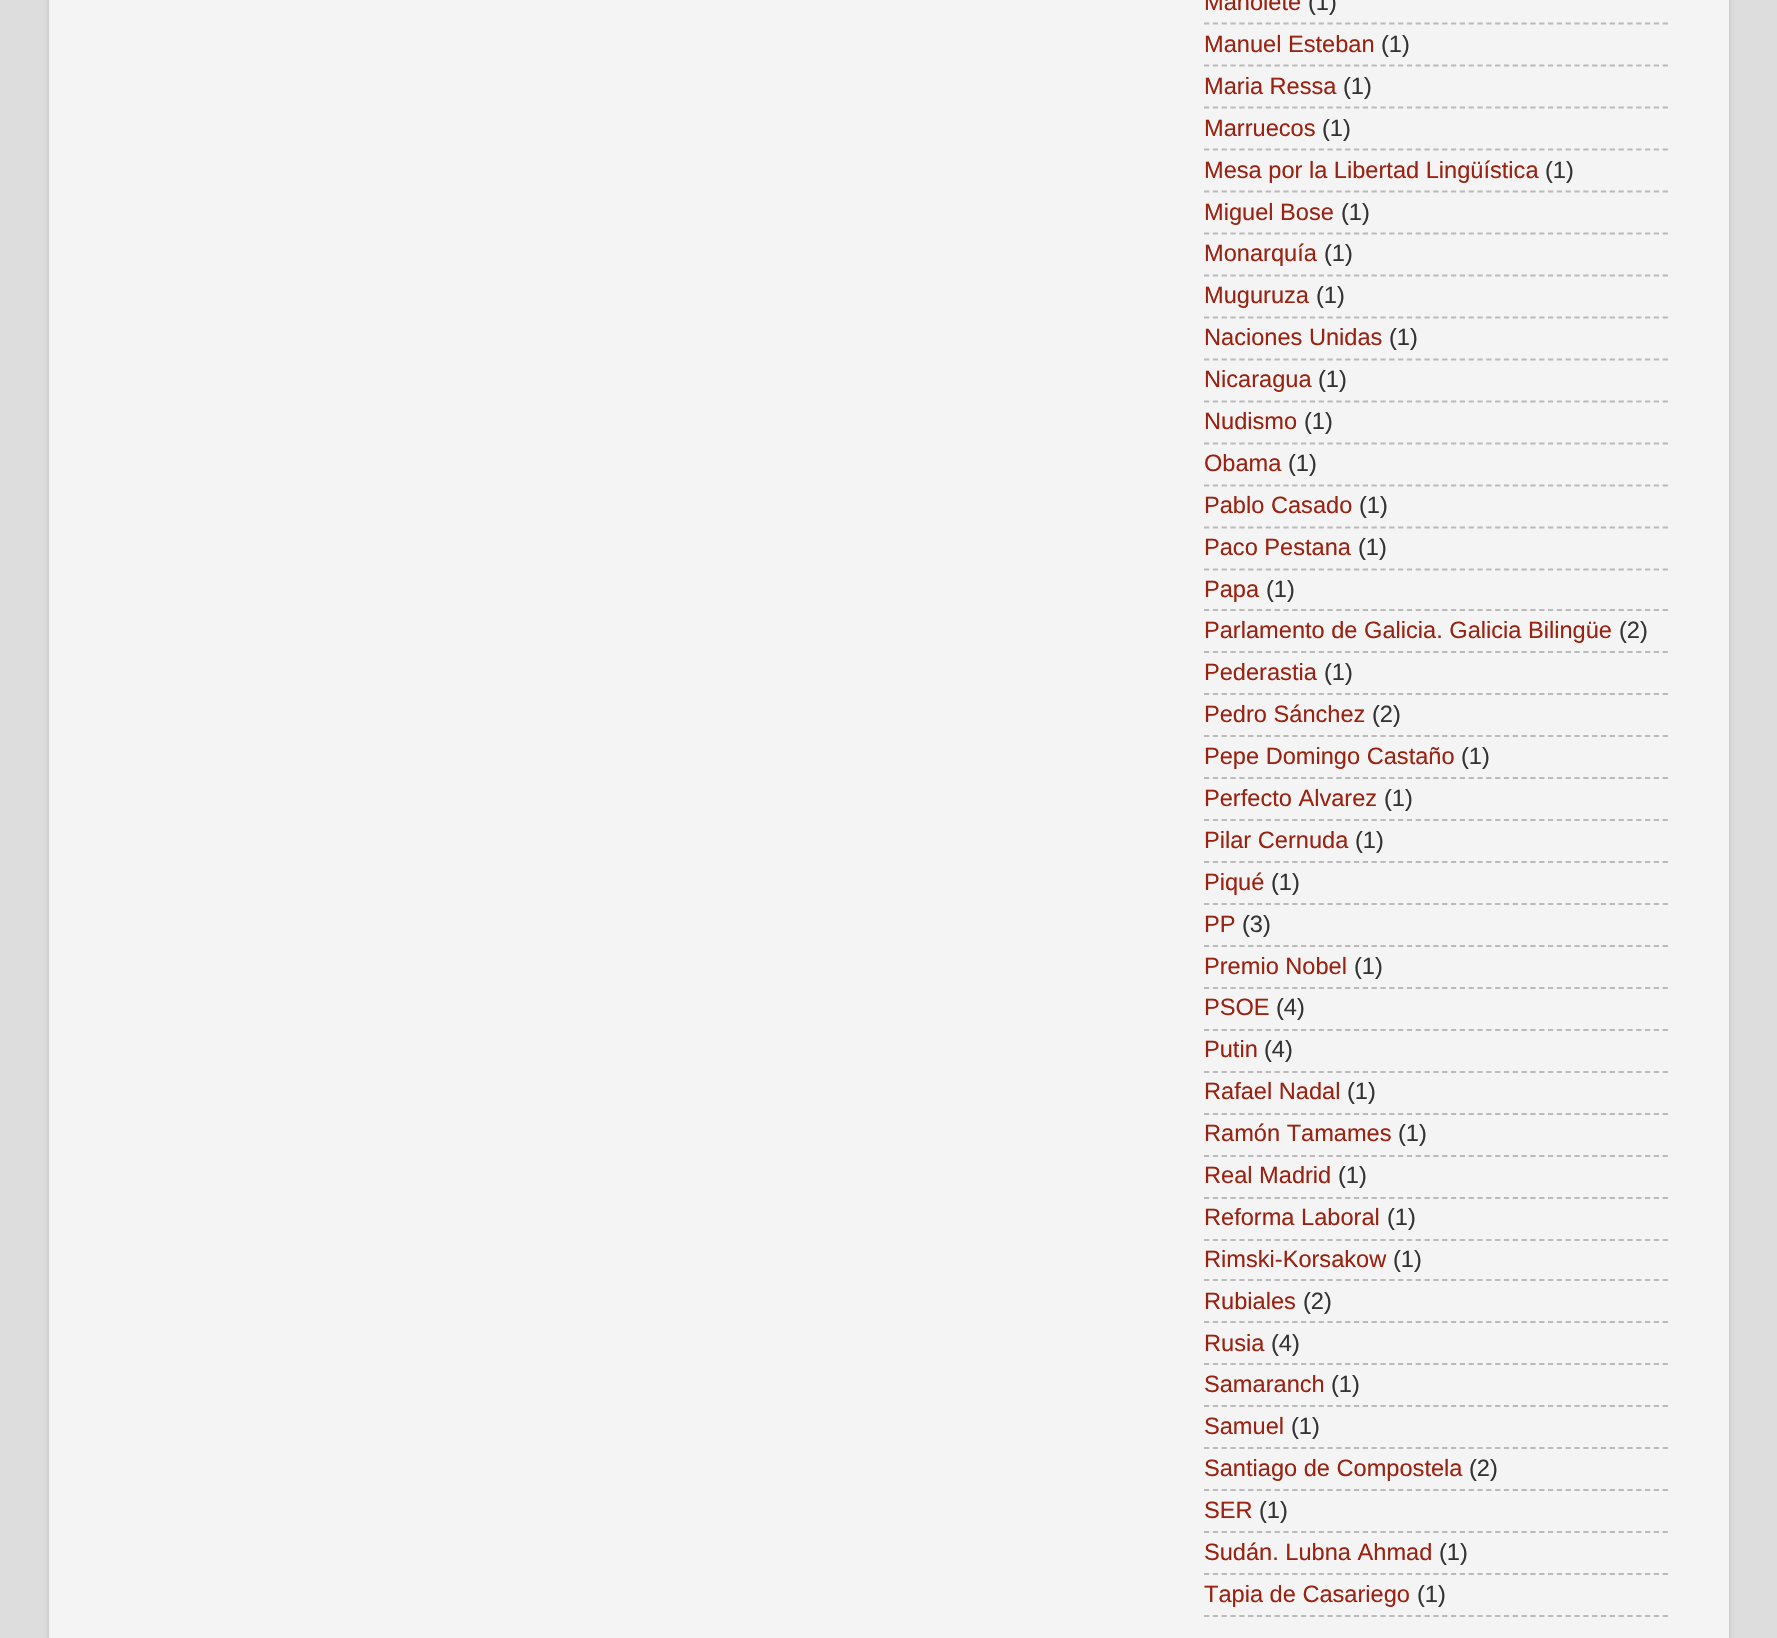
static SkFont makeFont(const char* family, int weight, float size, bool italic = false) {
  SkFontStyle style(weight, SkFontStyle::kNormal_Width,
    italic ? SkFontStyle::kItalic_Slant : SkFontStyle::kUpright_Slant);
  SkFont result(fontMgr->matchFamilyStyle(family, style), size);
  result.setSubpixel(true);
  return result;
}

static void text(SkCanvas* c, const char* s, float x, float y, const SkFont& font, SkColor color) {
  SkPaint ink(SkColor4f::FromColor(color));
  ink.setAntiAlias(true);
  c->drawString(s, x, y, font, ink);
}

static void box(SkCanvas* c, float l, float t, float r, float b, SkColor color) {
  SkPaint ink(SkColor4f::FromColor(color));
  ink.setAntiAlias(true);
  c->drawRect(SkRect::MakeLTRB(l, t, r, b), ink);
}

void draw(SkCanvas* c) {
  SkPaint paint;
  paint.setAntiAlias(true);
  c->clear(0xffdddddd);
  paint.setColor(0x26000000);
  paint.setMaskFilter(SkMaskFilter::MakeBlur(kNormal_SkBlurStyle, 2.5f));
  c->drawRoundRect(SkRect::MakeLTRB(49, -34, 1729, 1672), 26, 26, paint);
  paint.setMaskFilter(nullptr);
  box(c, 49, 0, 1729, 1638, 0xfff4f4f4);
  SkFont face1 = makeFont("Liberation Sans", 400, 23.6f);
  text(c, "Manolete", 1204, 10, face1, 0xff992211);
  text(c, "(1)", 1308, 10, face1, 0xff333333);
  paint.setStyle(SkPaint::kStroke_Style);
  paint.setStrokeWidth(1.8f);
  paint.setColor(0xffbababa);
  paint.setPathEffect(SkDashPathEffect::Make({{5.25f, 3.57f}}, 0));
  c->drawPath(SkPathBuilder().moveTo(1204, 23.5f).lineTo(1668, 23.5f).detach(), paint);
  paint.setPathEffect(nullptr);
  text(c, "Manuel Esteban", 1204, 52, face1, 0xff992211);
  text(c, "(1)", 1381, 52, face1, 0xff333333);
  paint.setPathEffect(SkDashPathEffect::Make({{5.25f, 3.57f}}, 0));
  c->drawPath(SkPathBuilder().moveTo(1204, 65.5f).lineTo(1668, 65.5f).detach(), paint);
  paint.setPathEffect(nullptr);
  text(c, "Maria Ressa", 1204, 94, face1, 0xff992211);
  text(c, "(1)", 1343, 94, face1, 0xff333333);
  paint.setPathEffect(SkDashPathEffect::Make({{5.25f, 3.57f}}, 0));
  c->drawPath(SkPathBuilder().moveTo(1204, 107.5f).lineTo(1668, 107.5f).detach(), paint);
  paint.setPathEffect(nullptr);
  text(c, "Marruecos", 1204, 136, face1, 0xff992211);
  text(c, "(1)", 1322, 136, face1, 0xff333333);
  paint.setPathEffect(SkDashPathEffect::Make({{5.25f, 3.57f}}, 0));
  c->drawPath(SkPathBuilder().moveTo(1204, 149.5f).lineTo(1668, 149.5f).detach(), paint);
  paint.setPathEffect(nullptr);
  text(c, "Mesa por la Libertad Lingüística", 1204, 178, face1, 0xff992211);
  text(c, "(1)", 1545, 178, face1, 0xff333333);
  paint.setPathEffect(SkDashPathEffect::Make({{5.25f, 3.57f}}, 0));
  c->drawPath(SkPathBuilder().moveTo(1204, 191.5f).lineTo(1668, 191.5f).detach(), paint);
  paint.setPathEffect(nullptr);
  text(c, "Miguel Bose", 1204, 220, face1, 0xff992211);
  text(c, "(1)", 1341, 220, face1, 0xff333333);
  paint.setPathEffect(SkDashPathEffect::Make({{5.25f, 3.57f}}, 0));
  c->drawPath(SkPathBuilder().moveTo(1204, 233.5f).lineTo(1668, 233.5f).detach(), paint);
  paint.setPathEffect(nullptr);
  text(c, "Monarquía", 1204, 261, face1, 0xff992211);
  text(c, "(1)", 1324, 261, face1, 0xff333333);
  paint.setPathEffect(SkDashPathEffect::Make({{5.25f, 3.57f}}, 0));
  c->drawPath(SkPathBuilder().moveTo(1204, 275.5f).lineTo(1668, 275.5f).detach(), paint);
  paint.setPathEffect(nullptr);
  text(c, "Muguruza", 1204, 303, face1, 0xff992211);
  text(c, "(1)", 1316, 303, face1, 0xff333333);
  paint.setPathEffect(SkDashPathEffect::Make({{5.25f, 3.57f}}, 0));
  c->drawPath(SkPathBuilder().moveTo(1204, 317.5f).lineTo(1668, 317.5f).detach(), paint);
  paint.setPathEffect(nullptr);
  text(c, "Naciones Unidas", 1204, 345, face1, 0xff992211);
  text(c, "(1)", 1389, 345, face1, 0xff333333);
  paint.setPathEffect(SkDashPathEffect::Make({{5.25f, 3.57f}}, 0));
  c->drawPath(SkPathBuilder().moveTo(1204, 359.5f).lineTo(1668, 359.5f).detach(), paint);
  paint.setPathEffect(nullptr);
  text(c, "Nicaragua", 1204, 387, face1, 0xff992211);
  text(c, "(1)", 1318, 387, face1, 0xff333333);
  paint.setPathEffect(SkDashPathEffect::Make({{5.25f, 3.57f}}, 0));
  c->drawPath(SkPathBuilder().moveTo(1204, 401.5f).lineTo(1668, 401.5f).detach(), paint);
  paint.setPathEffect(nullptr);
  text(c, "Nudismo", 1204, 429, face1, 0xff992211);
  text(c, "(1)", 1304, 429, face1, 0xff333333);
  paint.setPathEffect(SkDashPathEffect::Make({{5.25f, 3.57f}}, 0));
  c->drawPath(SkPathBuilder().moveTo(1204, 443.5f).lineTo(1668, 443.5f).detach(), paint);
  paint.setPathEffect(nullptr);
  text(c, "Obama", 1204, 471, face1, 0xff992211);
  text(c, "(1)", 1288, 471, face1, 0xff333333);
  paint.setPathEffect(SkDashPathEffect::Make({{5.25f, 3.57f}}, 0));
  c->drawPath(SkPathBuilder().moveTo(1204, 485.5f).lineTo(1668, 485.5f).detach(), paint);
  paint.setPathEffect(nullptr);
  text(c, "Pablo Casado", 1204, 513, face1, 0xff992211);
  text(c, "(1)", 1359, 513, face1, 0xff333333);
  paint.setPathEffect(SkDashPathEffect::Make({{5.25f, 3.57f}}, 0));
  c->drawPath(SkPathBuilder().moveTo(1204, 527.5f).lineTo(1668, 527.5f).detach(), paint);
  paint.setPathEffect(nullptr);
  text(c, "Paco Pestana", 1204, 555, face1, 0xff992211);
  text(c, "(1)", 1358, 555, face1, 0xff333333);
  paint.setPathEffect(SkDashPathEffect::Make({{5.25f, 3.57f}}, 0));
  c->drawPath(SkPathBuilder().moveTo(1204, 569.5f).lineTo(1668, 569.5f).detach(), paint);
  paint.setPathEffect(nullptr);
  text(c, "Papa", 1204, 597, face1, 0xff992211);
  text(c, "(1)", 1266, 597, face1, 0xff333333);
  paint.setPathEffect(SkDashPathEffect::Make({{5.25f, 3.57f}}, 0));
  c->drawPath(SkPathBuilder().moveTo(1204, 610).lineTo(1668, 610).detach(), paint);
  paint.setPathEffect(nullptr);
  text(c, "Parlamento de Galicia. Galicia Bilingüe", 1204, 638, face1, 0xff992211);
  text(c, "(2)", 1619, 638, face1, 0xff333333);
  paint.setPathEffect(SkDashPathEffect::Make({{5.25f, 3.57f}}, 0));
  c->drawPath(SkPathBuilder().moveTo(1204, 652).lineTo(1668, 652).detach(), paint);
  paint.setPathEffect(nullptr);
  text(c, "Pederastia", 1204, 680, face1, 0xff992211);
  text(c, "(1)", 1324, 680, face1, 0xff333333);
  paint.setPathEffect(SkDashPathEffect::Make({{5.25f, 3.57f}}, 0));
  c->drawPath(SkPathBuilder().moveTo(1204, 694).lineTo(1668, 694).detach(), paint);
  paint.setPathEffect(nullptr);
  text(c, "Pedro Sánchez", 1204, 722, face1, 0xff992211);
  text(c, "(2)", 1372, 722, face1, 0xff333333);
  paint.setPathEffect(SkDashPathEffect::Make({{5.25f, 3.57f}}, 0));
  c->drawPath(SkPathBuilder().moveTo(1204, 736).lineTo(1668, 736).detach(), paint);
  paint.setPathEffect(nullptr);
  text(c, "Pepe Domingo Castaño", 1204, 764, face1, 0xff992211);
  text(c, "(1)", 1461, 764, face1, 0xff333333);
  paint.setPathEffect(SkDashPathEffect::Make({{5.25f, 3.57f}}, 0));
  c->drawPath(SkPathBuilder().moveTo(1204, 778).lineTo(1668, 778).detach(), paint);
  paint.setPathEffect(nullptr);
  text(c, "Perfecto Alvarez", 1204, 806, face1, 0xff992211);
  text(c, "(1)", 1384, 806, face1, 0xff333333);
  paint.setPathEffect(SkDashPathEffect::Make({{5.25f, 3.57f}}, 0));
  c->drawPath(SkPathBuilder().moveTo(1204, 820).lineTo(1668, 820).detach(), paint);
  paint.setPathEffect(nullptr);
  text(c, "Pilar Cernuda", 1204, 848, face1, 0xff992211);
  text(c, "(1)", 1355, 848, face1, 0xff333333);
  paint.setPathEffect(SkDashPathEffect::Make({{5.25f, 3.57f}}, 0));
  c->drawPath(SkPathBuilder().moveTo(1204, 862).lineTo(1668, 862).detach(), paint);
  paint.setPathEffect(nullptr);
  text(c, "Piqué", 1204, 890, face1, 0xff992211);
  text(c, "(1)", 1271, 890, face1, 0xff333333);
  paint.setPathEffect(SkDashPathEffect::Make({{5.25f, 3.57f}}, 0));
  c->drawPath(SkPathBuilder().moveTo(1204, 904).lineTo(1668, 904).detach(), paint);
  paint.setPathEffect(nullptr);
  text(c, "PP", 1204, 932, face1, 0xff992211);
  text(c, "(3)", 1242, 932, face1, 0xff333333);
  paint.setPathEffect(SkDashPathEffect::Make({{5.25f, 3.57f}}, 0));
  c->drawPath(SkPathBuilder().moveTo(1204, 946).lineTo(1668, 946).detach(), paint);
  paint.setPathEffect(nullptr);
  text(c, "Premio Nobel", 1204, 974, face1, 0xff992211);
  text(c, "(1)", 1354, 974, face1, 0xff333333);
  paint.setPathEffect(SkDashPathEffect::Make({{5.25f, 3.57f}}, 0));
  c->drawPath(SkPathBuilder().moveTo(1204, 988).lineTo(1668, 988).detach(), paint);
  paint.setPathEffect(nullptr);
  text(c, "PSOE", 1204, 1015, face1, 0xff992211);
  text(c, "(4)", 1276, 1015, face1, 0xff333333);
  paint.setPathEffect(SkDashPathEffect::Make({{5.25f, 3.57f}}, 0));
  c->drawPath(SkPathBuilder().moveTo(1204, 1030).lineTo(1668, 1030).detach(), paint);
  paint.setPathEffect(nullptr);
  text(c, "Putin", 1204, 1057, face1, 0xff992211);
  text(c, "(4)", 1264, 1057, face1, 0xff333333);
  paint.setPathEffect(SkDashPathEffect::Make({{5.25f, 3.57f}}, 0));
  c->drawPath(SkPathBuilder().moveTo(1204, 1072).lineTo(1668, 1072).detach(), paint);
  paint.setPathEffect(nullptr);
  text(c, "Rafael Nadal", 1204, 1099, face1, 0xff992211);
  text(c, "(1)", 1347, 1099, face1, 0xff333333);
  paint.setPathEffect(SkDashPathEffect::Make({{5.25f, 3.57f}}, 0));
  c->drawPath(SkPathBuilder().moveTo(1204, 1114).lineTo(1668, 1114).detach(), paint);
  paint.setPathEffect(nullptr);
  text(c, "Ramón Tamames", 1204, 1141, face1, 0xff992211);
  text(c, "(1)", 1398, 1141, face1, 0xff333333);
  paint.setPathEffect(SkDashPathEffect::Make({{5.25f, 3.57f}}, 0));
  c->drawPath(SkPathBuilder().moveTo(1204, 1156).lineTo(1668, 1156).detach(), paint);
  paint.setPathEffect(nullptr);
  text(c, "Real Madrid", 1204, 1183, face1, 0xff992211);
  text(c, "(1)", 1338, 1183, face1, 0xff333333);
  paint.setPathEffect(SkDashPathEffect::Make({{5.25f, 3.57f}}, 0));
  c->drawPath(SkPathBuilder().moveTo(1204, 1198).lineTo(1668, 1198).detach(), paint);
  paint.setPathEffect(nullptr);
  text(c, "Reforma Laboral", 1204, 1225, face1, 0xff992211);
  text(c, "(1)", 1387, 1225, face1, 0xff333333);
  paint.setPathEffect(SkDashPathEffect::Make({{5.25f, 3.57f}}, 0));
  c->drawPath(SkPathBuilder().moveTo(1204, 1240).lineTo(1668, 1240).detach(), paint);
  paint.setPathEffect(nullptr);
  text(c, "Rimski-Korsakow", 1204, 1267, face1, 0xff992211);
  text(c, "(1)", 1393, 1267, face1, 0xff333333);
  paint.setPathEffect(SkDashPathEffect::Make({{5.25f, 3.57f}}, 0));
  c->drawPath(SkPathBuilder().moveTo(1204, 1280).lineTo(1668, 1280).detach(), paint);
  paint.setPathEffect(nullptr);
  text(c, "Rubiales", 1204, 1309, face1, 0xff992211);
  text(c, "(2)", 1303, 1309, face1, 0xff333333);
  paint.setPathEffect(SkDashPathEffect::Make({{5.25f, 3.57f}}, 0));
  c->drawPath(SkPathBuilder().moveTo(1204, 1322).lineTo(1668, 1322).detach(), paint);
  paint.setPathEffect(nullptr);
  text(c, "Rusia", 1204, 1351, face1, 0xff992211);
  text(c, "(4)", 1271, 1351, face1, 0xff333333);
  paint.setPathEffect(SkDashPathEffect::Make({{5.25f, 3.57f}}, 0));
  c->drawPath(SkPathBuilder().moveTo(1204, 1364).lineTo(1668, 1364).detach(), paint);
  paint.setPathEffect(nullptr);
  text(c, "Samaranch", 1204, 1392, face1, 0xff992211);
  text(c, "(1)", 1331, 1392, face1, 0xff333333);
  paint.setPathEffect(SkDashPathEffect::Make({{5.25f, 3.57f}}, 0));
  c->drawPath(SkPathBuilder().moveTo(1204, 1406).lineTo(1668, 1406).detach(), paint);
  paint.setPathEffect(nullptr);
  text(c, "Samuel", 1204, 1434, face1, 0xff992211);
  text(c, "(1)", 1291, 1434, face1, 0xff333333);
  paint.setPathEffect(SkDashPathEffect::Make({{5.25f, 3.57f}}, 0));
  c->drawPath(SkPathBuilder().moveTo(1204, 1448).lineTo(1668, 1448).detach(), paint);
  paint.setPathEffect(nullptr);
  text(c, "Santiago de Compostela", 1204, 1476, face1, 0xff992211);
  text(c, "(2)", 1469, 1476, face1, 0xff333333);
  paint.setPathEffect(SkDashPathEffect::Make({{5.25f, 3.57f}}, 0));
  c->drawPath(SkPathBuilder().moveTo(1204, 1490).lineTo(1668, 1490).detach(), paint);
  paint.setPathEffect(nullptr);
  text(c, "SER", 1204, 1518, face1, 0xff992211);
  text(c, "(1)", 1259, 1518, face1, 0xff333333);
  paint.setPathEffect(SkDashPathEffect::Make({{5.25f, 3.57f}}, 0));
  c->drawPath(SkPathBuilder().moveTo(1204, 1532).lineTo(1668, 1532).detach(), paint);
  paint.setPathEffect(nullptr);
  text(c, "Sudán. Lubna Ahmad", 1204, 1560, face1, 0xff992211);
  text(c, "(1)", 1439, 1560, face1, 0xff333333);
  paint.setPathEffect(SkDashPathEffect::Make({{5.25f, 3.57f}}, 0));
  c->drawPath(SkPathBuilder().moveTo(1204, 1574).lineTo(1668, 1574).detach(), paint);
  paint.setPathEffect(nullptr);
  text(c, "Tapia de Casariego", 1204, 1602, face1, 0xff992211);
  text(c, "(1)", 1417, 1602, face1, 0xff333333);
  paint.setPathEffect(SkDashPathEffect::Make({{5.25f, 3.57f}}, 0));
  c->drawPath(SkPathBuilder().moveTo(1204, 1616).lineTo(1668, 1616).detach(), paint);
  paint.setPathEffect(nullptr);
}
